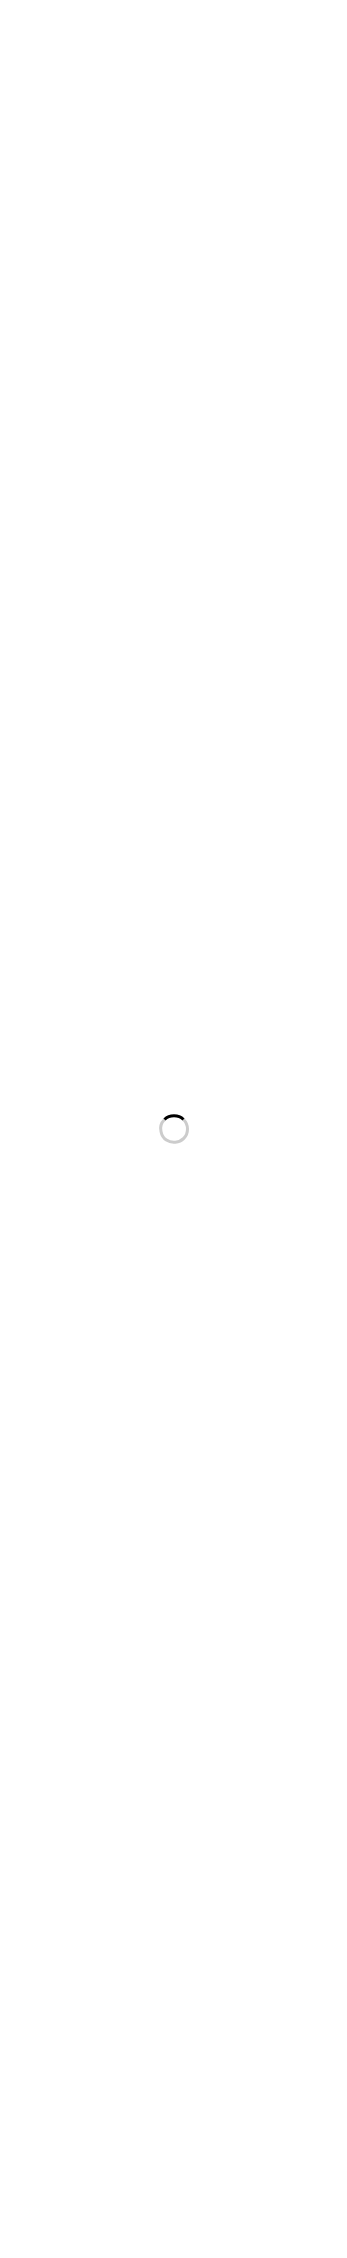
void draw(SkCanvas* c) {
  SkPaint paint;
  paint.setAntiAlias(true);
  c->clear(0xffffffff);
  paint.setStyle(SkPaint::kStroke_Style);
  paint.setStrokeWidth(3);
  paint.setColor(0xff000000);
  c->drawPath(SkPathBuilder().moveTo(164.5f, 1119.5f).cubicTo(169.5f, 1114.5f, 178.5f, 1114.5f, 183.5f, 1119.5f).detach(), paint);
  paint.setColor(0x33000000);
  c->drawPath(SkPathBuilder().moveTo(183.5f, 1119.5f).cubicTo(186, 1122, 187.5f, 1125.5f, 187.5f, 1129).cubicTo(187.5f, 1145, 164, 1147.5f, 161, 1131.5f).cubicTo(160, 1127.5f, 161.5f, 1122.5f, 164.5f, 1119.5f).detach(), paint);
}
